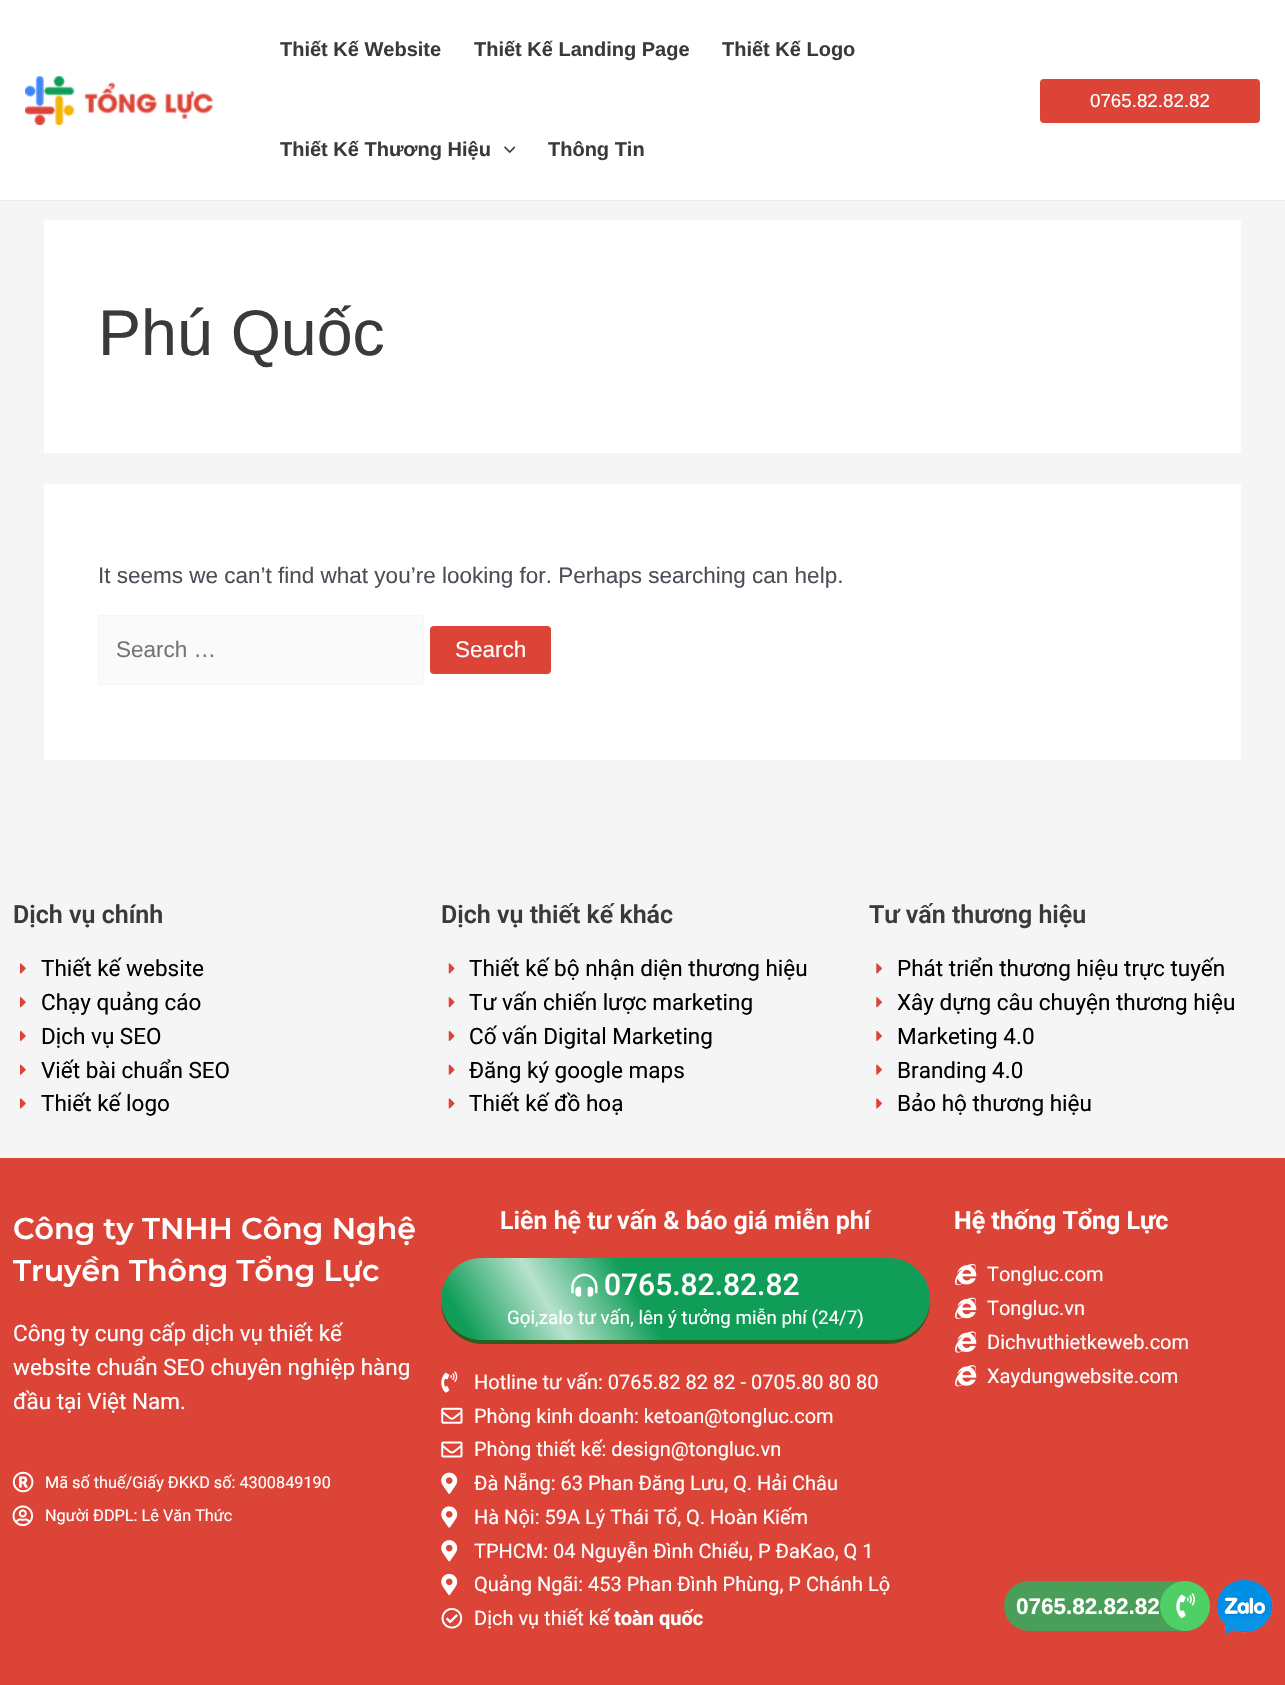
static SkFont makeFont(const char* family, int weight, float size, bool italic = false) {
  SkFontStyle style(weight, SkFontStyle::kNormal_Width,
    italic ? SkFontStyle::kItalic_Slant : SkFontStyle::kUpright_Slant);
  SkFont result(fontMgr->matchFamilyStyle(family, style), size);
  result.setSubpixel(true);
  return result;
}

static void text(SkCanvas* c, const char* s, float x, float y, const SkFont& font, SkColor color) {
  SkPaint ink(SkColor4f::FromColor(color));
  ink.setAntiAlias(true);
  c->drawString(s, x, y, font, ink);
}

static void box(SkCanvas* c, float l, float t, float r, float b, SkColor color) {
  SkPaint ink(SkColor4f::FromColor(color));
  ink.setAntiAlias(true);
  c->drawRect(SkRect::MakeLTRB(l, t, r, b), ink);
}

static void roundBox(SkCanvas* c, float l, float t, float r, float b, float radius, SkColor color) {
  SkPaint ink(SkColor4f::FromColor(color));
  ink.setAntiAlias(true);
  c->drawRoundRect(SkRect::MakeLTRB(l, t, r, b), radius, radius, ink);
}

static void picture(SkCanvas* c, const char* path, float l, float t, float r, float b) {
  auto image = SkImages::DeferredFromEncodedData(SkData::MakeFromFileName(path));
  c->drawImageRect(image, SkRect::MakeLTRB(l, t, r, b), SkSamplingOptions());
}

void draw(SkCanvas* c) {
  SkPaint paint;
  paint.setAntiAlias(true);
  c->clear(0xfff5f5f5);
  box(c, 0, 0, 1285, 200, 0xffffffff);
  box(c, 0, 200, 1285, 201, 0xffeaeaea);
  picture(c, "img_01.png", 25, 76, 213, 125);
  SkFont face1 = makeFont("Liberation Sans", 700, 20);
  text(c, "Thiết Kế Website", 280, 56, face1, 0xff3a3a3a);
  text(c, "Thiết Kế Landing Page", 474, 56, face1, 0xff3a3a3a);
  text(c, "Thiết Kế Logo", 722, 56, face1, 0xff3a3a3a);
  text(c, "Thiết Kế Thương Hiệu", 280, 156, face1, 0xff3a3a3a);
  picture(c, "img_02.png", 504, 146, 515, 154);
  text(c, "Thông Tin", 548, 156, face1, 0xff3a3a3a);
  roundBox(c, 1040, 79, 1260, 123, 4, 0xffdb4437);
  SkFont face2 = makeFont("Liberation Sans", 400, 18.75f);
  text(c, "0765.82.82.82", 1090, 107, face2, 0xffffffff);
  box(c, 44, 220, 1241, 453, 0xffffffff);
  SkFont face3 = makeFont("Liberation Sans", 400, 64.5f);
  text(c, "Phú Quốc", 98, 355, face3, 0xff3a3a3a);
  box(c, 44, 484, 1241, 760, 0xffffffff);
  SkFont face4 = makeFont("Liberation Sans", 400, 22.5f);
  text(c, "It seems we can’t find what you’re looking for. Perhaps searching can help.", 98, 583, face4, 0xff4b4f58);
  paint.setColor(0xfffafafa);
  c->drawRoundRect(SkRect::MakeLTRB(98.5f, 615.5f, 423.5f, 684.5f), 2, 2, paint);
  paint.setStyle(SkPaint::kStroke_Style);
  paint.setStrokeWidth(1);
  paint.setColor(0xfff5f5f5);
  c->drawRoundRect(SkRect::MakeLTRB(98.5f, 615.5f, 423.5f, 684.5f), 2, 2, paint);
  text(c, "Search …", 116, 657, face4, 0xff757575);
  roundBox(c, 430, 626, 551, 674, 4, 0xffdb4437);
  text(c, "Search", 455, 657, face4, 0xffffffff);
  SkFont face5 = makeFont("Roboto", 600, 25);
  text(c, "Dịch vụ chính", 13, 923, face5, 0xff3a3a3a);
  picture(c, "img_03.png", 20, 963, 26, 974);
  SkFont face6 = makeFont("Roboto", 400, 22.5f);
  text(c, "Thiết kế website", 41, 976, face6, 0xff000000);
  picture(c, "img_04.png", 20, 997, 26, 1008);
  text(c, "Chạy quảng cáo", 41, 1010, face6, 0xff000000);
  picture(c, "img_05.png", 20, 1030, 26, 1041);
  text(c, "Dịch vụ SEO", 41, 1044, face6, 0xff000000);
  picture(c, "img_06.png", 20, 1064, 26, 1075);
  text(c, "Viết bài chuẩn SEO", 41, 1078, face6, 0xff000000);
  picture(c, "img_03.png", 20, 1098, 26, 1109);
  text(c, "Thiết kế logo", 41, 1111, face6, 0xff000000);
  text(c, "Dịch vụ thiết kế khác", 441, 923, face5, 0xff3a3a3a);
  picture(c, "img_07.png", 448, 963, 455, 974);
  text(c, "Thiết kế bộ nhận diện thương hiệu", 469, 976, face6, 0xff000000);
  picture(c, "img_08.png", 448, 997, 455, 1008);
  text(c, "Tư vấn chiến lược marketing", 469, 1010, face6, 0xff000000);
  picture(c, "img_09.png", 448, 1030, 455, 1041);
  text(c, "Cố vấn Digital Marketing", 469, 1044, face6, 0xff000000);
  picture(c, "img_10.png", 448, 1064, 455, 1075);
  text(c, "Đăng ký google maps", 469, 1078, face6, 0xff000000);
  picture(c, "img_07.png", 448, 1098, 455, 1109);
  text(c, "Thiết kế đồ hoạ", 469, 1111, face6, 0xff000000);
  text(c, "Tư vấn thương hiệu", 869, 923, face5, 0xff3a3a3a);
  picture(c, "img_11.png", 876, 963, 882, 974);
  text(c, "Phát triển thương hiệu trực tuyến", 897, 976, face6, 0xff000000);
  picture(c, "img_12.png", 876, 997, 882, 1008);
  text(c, "Xây dựng câu chuyện thương hiệu", 897, 1010, face6, 0xff000000);
  picture(c, "img_13.png", 876, 1030, 882, 1041);
  text(c, "Marketing 4.0", 897, 1044, face6, 0xff000000);
  picture(c, "img_14.png", 876, 1064, 882, 1075);
  text(c, "Branding 4.0", 897, 1078, face6, 0xff000000);
  picture(c, "img_11.png", 876, 1098, 882, 1109);
  text(c, "Bảo hộ thương hiệu", 897, 1111, face6, 0xff000000);
  box(c, 0, 1158, 1285, 1685, 0xffdb4437);
  SkFont face7 = makeFont("Montserrat", 600, 30);
  text(c, "Công ty TNHH Công Nghệ", 13, 1239, face7, 0xffffffff);
  text(c, "Truyền Thông Tổng Lực", 13, 1281, face7, 0xffffffff);
  text(c, "Công ty cung cấp dịch vụ thiết kế", 13, 1341, face6, 0xffffffff);
  text(c, "website chuẩn SEO chuyên nghiệp hàng", 13, 1375, face6, 0xffffffff);
  text(c, "đầu tại Việt Nam.", 13, 1409, face6, 0xffffffff);
  picture(c, "img_15.png", 12, 1471, 34, 1493);
  SkFont face8 = makeFont("Roboto", 400, 16.25f);
  text(c, "Mã số thuế/Giấy ĐKKD số: 4300849190", 45, 1488, face8, 0xffffffff);
  picture(c, "img_16.png", 12, 1505, 34, 1527);
  text(c, "Người ĐDPL: Lê Văn Thức", 45, 1521, face8, 0xffffffff);
  text(c, "Liên hệ tư vấn & báo giá miễn phí", 500, 1229, face5, 0xffffffff);
  paint.setStyle(SkPaint::kFill_Style);
  paint.setColor(0xff2d5c1f);
  c->drawPath(SkPathBuilder().moveTo(441, 1298).lineTo(441, 1302).cubicTo(441, 1325, 460, 1344, 482, 1344).lineTo(888, 1344).cubicTo(911, 1344, 930, 1325, 930, 1302).lineTo(930, 1301).cubicTo(929, 1323, 911, 1340, 889, 1340).lineTo(482, 1340).cubicTo(460, 1340, 441, 1322, 441, 1299).close().detach(), paint);
  roundBox(c, 441, 1258, 930, 1340, 41, 0xff0f9d58);
  {
    const SkColor colors[] = {0x00ffffff, 0xb3ffffff, 0x00ffffff};
    const float stops[] = {0, 0.5f, 1};
    const SkPoint ends[] = {{610, 1248}, {468, 1331}};
    paint.setShader(SkGradientShader::MakeLinear(ends, colors, stops, 3, SkTileMode::kClamp));
    paint.setAlpha(255);
  }
  c->drawPath(SkPathBuilder().moveTo(482, 1258).lineTo(616, 1258).lineTo(664, 1340).lineTo(482, 1340).cubicTo(479, 1340, 475, 1340, 472, 1339).lineTo(443, 1287).cubicTo(448, 1270, 463, 1258, 482, 1258).close().detach(), paint);
  picture(c, "img_17.png", 571, 1273, 598, 1297);
  SkFont face9 = makeFont("Roboto", 500, 30);
  text(c, "0765.82.82.82", 604, 1295, face9, 0xffffffff);
  SkFont face10 = makeFont("Roboto", 400, 18.75f);
  text(c, "Gọi,zalo tư vấn, lên ý tưởng miễn phí (24/7)", 507, 1324, face10, 0xffffffff);
  picture(c, "img_18.png", 441, 1371, 458, 1393);
  SkFont face11 = makeFont("Roboto", 400, 20);
  text(c, "Hotline tư vấn: 0765.82 82 82 - 0705.80 80 80", 474, 1389, face11, 0xffffffff);
  picture(c, "img_19.png", 441, 1407, 463, 1424);
  text(c, "Phòng kinh doanh: ketoan@tongluc.com", 474, 1423, face11, 0xffffffff);
  picture(c, "img_20.png", 441, 1441, 463, 1458);
  text(c, "Phòng thiết kế: design@tongluc.vn", 474, 1456, face11, 0xffffffff);
  picture(c, "img_21.png", 441, 1472, 458, 1494);
  text(c, "Đà Nẵng: 63 Phan Đăng Lưu, Q. Hải Châu", 474, 1490, face11, 0xffffffff);
  picture(c, "img_22.png", 441, 1506, 458, 1528);
  text(c, "Hà Nội: 59A Lý Thái Tổ, Q. Hoàn Kiếm", 474, 1524, face11, 0xffffffff);
  picture(c, "img_23.png", 441, 1540, 458, 1562);
  text(c, "TPHCM: 04 Nguyễn Đình Chiểu, P ĐaKao, Q 1", 474, 1558, face11, 0xffffffff);
  picture(c, "img_24.png", 441, 1573, 458, 1596);
  text(c, "Quảng Ngãi: 453 Phan Đình Phùng, P Chánh Lộ", 474, 1591, face11, 0xffffffff);
  picture(c, "img_25.png", 441, 1608, 463, 1629);
  text(c, "Dịch vụ thiết kế", 474, 1625, face11, 0xffffffff);
  SkFont face12 = makeFont("Roboto", 700, 20);
  text(c, "toàn quốc", 614, 1625, face12, 0xffffffff);
  SkFont face13 = makeFont("Roboto", 700, 25);
  text(c, "Hệ thống Tổng Lực", 954, 1229, face13, 0xffffffff);
  picture(c, "img_26.png", 955, 1263, 977, 1286);
  text(c, "Tongluc.com", 987, 1281, face11, 0xffffffff);
  picture(c, "img_27.png", 955, 1297, 977, 1319);
  text(c, "Tongluc.vn", 987, 1315, face11, 0xffffffff);
  picture(c, "img_28.png", 955, 1331, 977, 1353);
  text(c, "Dichvuthietkeweb.com", 987, 1349, face11, 0xffffffff);
  picture(c, "img_29.png", 955, 1365, 977, 1387);
  text(c, "Xaydungwebsite.com", 987, 1383, face11, 0xffffffff);
  picture(c, "img_30.png", 1217, 1579, 1273, 1635);
  roundBox(c, 1004, 1581, 1210, 1631, 25, 0xff499e59);
  SkFont face14 = makeFont("Liberation Sans", 700, 22.5f);
  text(c, "0765.82.82.82", 1016, 1614, face14, 0xffffffff);
  paint.setShader(nullptr);
  paint.setColor(0xff4ed066);
  c->drawCircle(1185, 1606, 25, paint);
  picture(c, "img_31.png", 1176, 1593, 1196, 1619);
}
